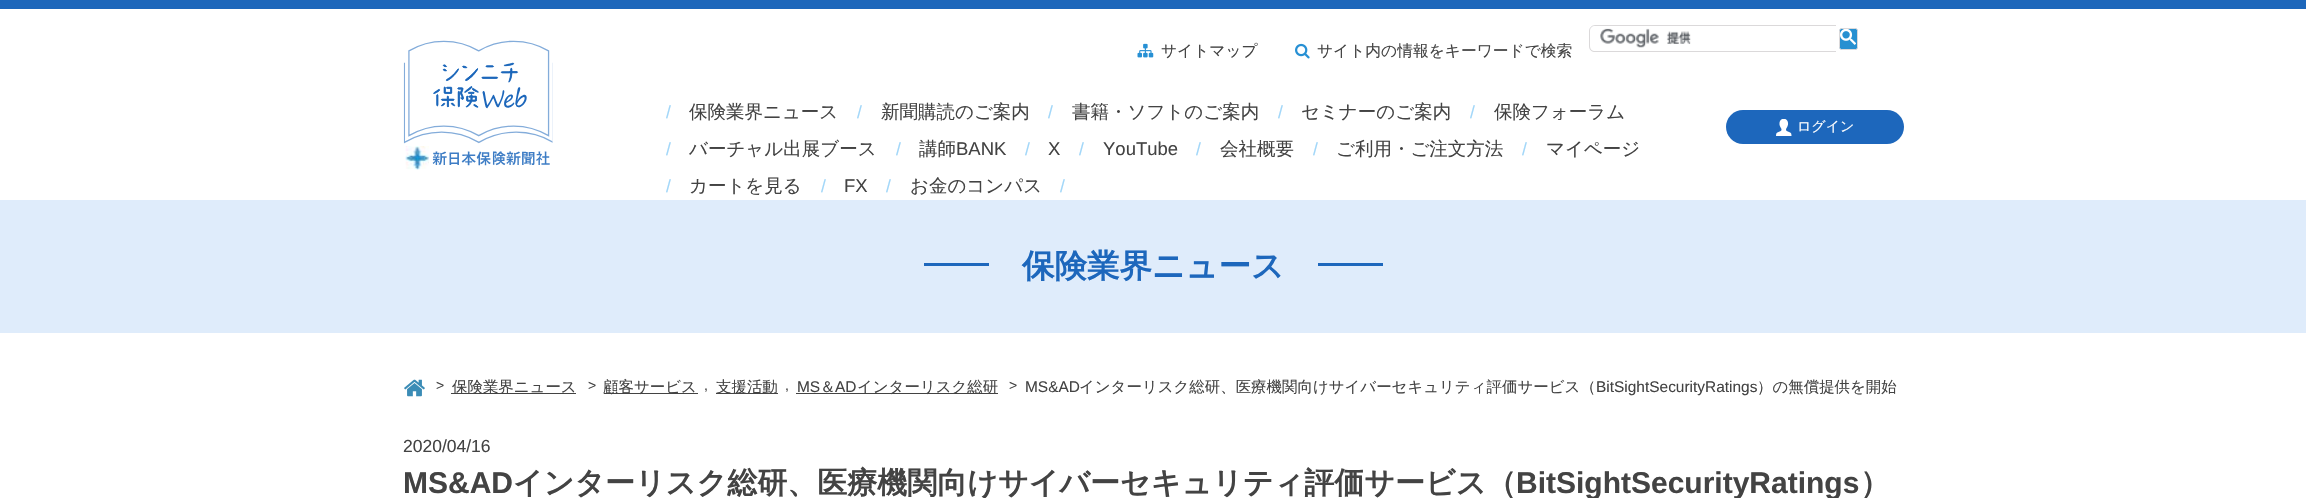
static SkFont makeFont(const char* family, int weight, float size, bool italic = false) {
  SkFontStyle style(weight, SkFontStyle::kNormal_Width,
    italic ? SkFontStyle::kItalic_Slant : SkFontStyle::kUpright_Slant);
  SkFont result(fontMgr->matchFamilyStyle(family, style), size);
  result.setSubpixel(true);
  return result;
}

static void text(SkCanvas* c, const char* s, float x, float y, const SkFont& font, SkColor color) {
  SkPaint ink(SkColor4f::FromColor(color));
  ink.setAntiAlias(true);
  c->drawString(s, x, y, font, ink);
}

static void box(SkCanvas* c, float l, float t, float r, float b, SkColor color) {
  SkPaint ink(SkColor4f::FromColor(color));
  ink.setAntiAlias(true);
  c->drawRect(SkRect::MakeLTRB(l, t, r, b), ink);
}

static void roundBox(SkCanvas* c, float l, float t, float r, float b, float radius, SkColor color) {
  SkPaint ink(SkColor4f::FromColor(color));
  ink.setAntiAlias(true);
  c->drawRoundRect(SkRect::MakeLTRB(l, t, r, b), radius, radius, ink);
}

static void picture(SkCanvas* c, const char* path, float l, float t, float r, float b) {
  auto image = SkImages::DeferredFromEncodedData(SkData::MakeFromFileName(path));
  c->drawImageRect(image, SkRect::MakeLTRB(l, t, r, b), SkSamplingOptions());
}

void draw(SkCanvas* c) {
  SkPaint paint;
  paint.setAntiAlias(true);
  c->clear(0xffffffff);
  box(c, 0, 0, 2306, 9, 0xff1d67bb);
  picture(c, "img_01.png", 403, 40, 553, 170);
  picture(c, "img_02.png", 1137, 43, 1154, 58);
  SkFont face1 = makeFont("WenQuanYi Zen Hei", 500, 15.75f);
  text(c, "サイトマップ", 1161, 56, face1, 0xff434343);
  picture(c, "img_03.png", 1295, 43, 1310, 59);
  text(c, "サイト内の情報をキーワードで検索", 1317, 56, face1, 0xff434343);
  paint.setColor(0xffdbd9da);
  c->drawPath(SkPathBuilder(SkPathFillType::kEvenOdd).moveTo(1595, 25).lineTo(1836, 25).lineTo(1836, 52).lineTo(1595, 52).cubicTo(1592, 52, 1589, 50, 1589, 46).lineTo(1589, 31).cubicTo(1589, 28, 1592, 25, 1595, 25).close().moveTo(1595, 26).lineTo(1836, 26).lineTo(1836, 51).lineTo(1595, 51).cubicTo(1592, 51, 1590, 49, 1590, 46).lineTo(1590, 31).cubicTo(1590, 28, 1592, 26, 1595, 26).close().detach(), paint);
  picture(c, "img_04.png", 1600, 28, 1691, 48);
  paint.setColor(0xff2790d1);
  c->drawRoundRect(SkRect::MakeLTRB(1839.5f, 28.5f, 1857.5f, 49.5f), 2, 2, paint);
  paint.setStyle(SkPaint::kStroke_Style);
  paint.setStrokeWidth(1);
  paint.setColor(0xffdbd9da);
  c->drawRoundRect(SkRect::MakeLTRB(1839.5f, 28.5f, 1857.5f, 49.5f), 2, 2, paint);
  picture(c, "img_05.png", 1840, 29, 1856, 45);
  SkFont face2 = makeFont("Liberation Sans", 400, 17.5f);
  text(c, "/", 666, 118, face2, 0xffa2d7f9);
  SkFont face3 = makeFont("WenQuanYi Zen Hei", 500, 18.5f);
  text(c, "保険業界ニュース", 689, 118, face3, 0xff434343);
  text(c, "/", 857, 118, face2, 0xffa2d7f9);
  text(c, "新聞購読のご案内", 881, 118, face3, 0xff434343);
  text(c, "/", 1048, 118, face2, 0xffa2d7f9);
  text(c, "書籍・ソフトのご案内", 1072, 118, face3, 0xff434343);
  text(c, "/", 1278, 118, face2, 0xffa2d7f9);
  text(c, "セミナーのご案内", 1301, 118, face3, 0xff434343);
  text(c, "/", 1470, 118, face2, 0xffa2d7f9);
  text(c, "保険フォーラム", 1494, 118, face3, 0xff434343);
  text(c, "/", 666, 155, face2, 0xffa2d7f9);
  text(c, "バーチャル出展ブース", 689, 155, face3, 0xff434343);
  text(c, "/", 896, 155, face2, 0xffa2d7f9);
  text(c, "講師", 919, 155, face3, 0xff434343);
  SkFont face4 = makeFont("Liberation Sans", 400, 18.5f);
  text(c, "BANK", 956, 155, face4, 0xff434343);
  text(c, "/", 1025, 155, face2, 0xffa2d7f9);
  text(c, "X", 1048, 155, face4, 0xff434343);
  text(c, "/", 1079, 155, face2, 0xffa2d7f9);
  text(c, "YouTube", 1103, 155, face4, 0xff434343);
  text(c, "/", 1196, 155, face2, 0xffa2d7f9);
  text(c, "会社概要", 1220, 155, face3, 0xff434343);
  text(c, "/", 1313, 155, face2, 0xffa2d7f9);
  text(c, "ご利用・ご注文方法", 1336, 155, face3, 0xff434343);
  text(c, "/", 1522, 155, face2, 0xffa2d7f9);
  text(c, "マイページ", 1546, 155, face3, 0xff434343);
  text(c, "/", 666, 192, face2, 0xffa2d7f9);
  text(c, "カートを見る", 689, 192, face3, 0xff434343);
  text(c, "/", 821, 192, face2, 0xffa2d7f9);
  text(c, "FX", 844, 192, face4, 0xff434343);
  text(c, "/", 886, 192, face2, 0xffa2d7f9);
  text(c, "お金のコンパス", 910, 192, face3, 0xff434343);
  text(c, "/", 1060, 192, face2, 0xffa2d7f9);
  roundBox(c, 1726, 110, 1904, 144, 17, 0xff1d67bc);
  picture(c, "img_06.png", 1776, 119, 1792, 136);
  SkFont face5 = makeFont("WenQuanYi Zen Hei", 500, 14);
  text(c, "ログイン", 1797, 131, face5, 0xffffffff);
  box(c, 0, 200, 2306, 333, 0xffdfecfb);
  box(c, 924, 263, 1383, 266, 0xff1d67bc);
  box(c, 989, 263, 1318, 266, 0xffdfecfb);
  SkFont face6 = makeFont("WenQuanYi Zen Hei", 700, 32.5f);
  text(c, "保険業界ニュース", 1022, 277, face6, 0xff1d67bc);
  picture(c, "img_07.png", 404, 379, 425, 397);
  SkFont face7 = makeFont("Liberation Sans", 400, 14);
  text(c, ">", 436, 390, face7, 0xff434343);
  box(c, 451, 393, 576, 394, 0xff434343);
  SkFont face8 = makeFont("WenQuanYi Zen Hei", 500, 15.45f);
  text(c, "保険業界ニュース", 452, 392, face8, 0xff434343);
  text(c, ">", 588, 390, face7, 0xff434343);
  box(c, 604, 393, 698, 394, 0xff434343);
  text(c, "顧客サービス", 603, 392, face8, 0xff434343);
  text(c, ",", 704, 390, face7, 0xff434343);
  box(c, 716, 393, 778, 394, 0xff434343);
  text(c, "支援活動", 716, 392, face8, 0xff434343);
  text(c, ",", 785, 390, face7, 0xff434343);
  SkFont face9 = makeFont("Liberation Sans", 400, 15.45f);
  text(c, "MS", 797, 392, face9, 0xff434343);
  box(c, 796, 393, 998, 394, 0xff434343);
  text(c, "＆", 820, 392, face8, 0xff434343);
  text(c, "AD", 835, 392, face9, 0xff434343);
  text(c, "インターリスク総研", 857, 392, face8, 0xff434343);
  text(c, ">", 1009, 390, face7, 0xff434343);
  text(c, "MS&AD", 1025, 392, face9, 0xff434343);
  text(c, "インターリスク総研、医療機関向けサイバーセキュリティ評価サービス（", 1079, 392, face8, 0xff434343);
  text(c, "BitSightSecurityRatings", 1596, 392, face9, 0xff434343);
  text(c, "）の無償提供を開始", 1757, 392, face8, 0xff434343);
  text(c, "2020/04/16", 403, 452, face2, 0xff434343);
  SkFont face10 = makeFont("Liberation Sans", 700, 30);
  text(c, "MS&AD", 403, 493, face10, 0xff434343);
  SkFont face11 = makeFont("WenQuanYi Zen Hei", 700, 30);
  text(c, "インターリスク総研、医療機関向けサイバーセキュリティ評価サービス（", 513, 493, face11, 0xff434343);
  text(c, "BitSightSecurityRatings", 1516, 493, face10, 0xff434343);
  text(c, "）", 1860, 493, face11, 0xff434343);
}
